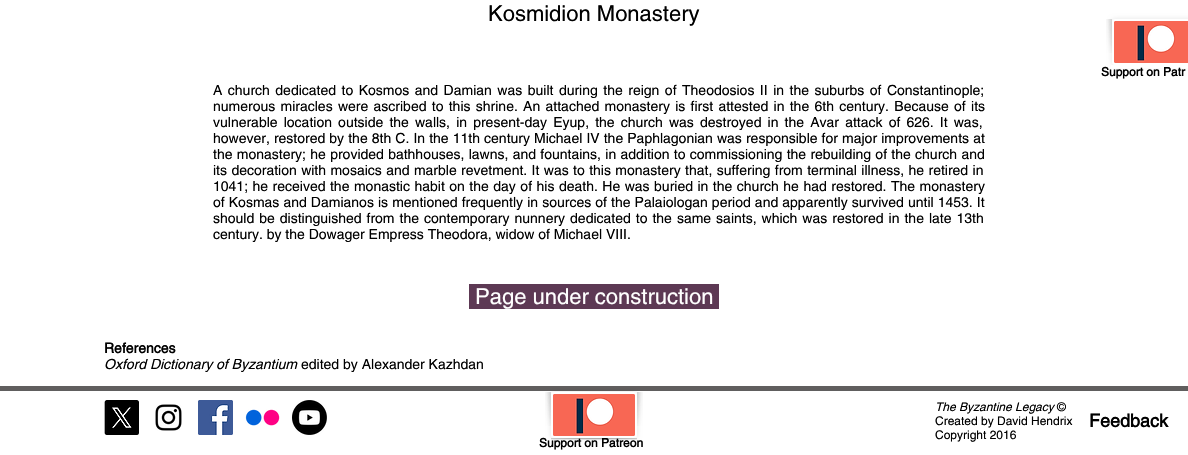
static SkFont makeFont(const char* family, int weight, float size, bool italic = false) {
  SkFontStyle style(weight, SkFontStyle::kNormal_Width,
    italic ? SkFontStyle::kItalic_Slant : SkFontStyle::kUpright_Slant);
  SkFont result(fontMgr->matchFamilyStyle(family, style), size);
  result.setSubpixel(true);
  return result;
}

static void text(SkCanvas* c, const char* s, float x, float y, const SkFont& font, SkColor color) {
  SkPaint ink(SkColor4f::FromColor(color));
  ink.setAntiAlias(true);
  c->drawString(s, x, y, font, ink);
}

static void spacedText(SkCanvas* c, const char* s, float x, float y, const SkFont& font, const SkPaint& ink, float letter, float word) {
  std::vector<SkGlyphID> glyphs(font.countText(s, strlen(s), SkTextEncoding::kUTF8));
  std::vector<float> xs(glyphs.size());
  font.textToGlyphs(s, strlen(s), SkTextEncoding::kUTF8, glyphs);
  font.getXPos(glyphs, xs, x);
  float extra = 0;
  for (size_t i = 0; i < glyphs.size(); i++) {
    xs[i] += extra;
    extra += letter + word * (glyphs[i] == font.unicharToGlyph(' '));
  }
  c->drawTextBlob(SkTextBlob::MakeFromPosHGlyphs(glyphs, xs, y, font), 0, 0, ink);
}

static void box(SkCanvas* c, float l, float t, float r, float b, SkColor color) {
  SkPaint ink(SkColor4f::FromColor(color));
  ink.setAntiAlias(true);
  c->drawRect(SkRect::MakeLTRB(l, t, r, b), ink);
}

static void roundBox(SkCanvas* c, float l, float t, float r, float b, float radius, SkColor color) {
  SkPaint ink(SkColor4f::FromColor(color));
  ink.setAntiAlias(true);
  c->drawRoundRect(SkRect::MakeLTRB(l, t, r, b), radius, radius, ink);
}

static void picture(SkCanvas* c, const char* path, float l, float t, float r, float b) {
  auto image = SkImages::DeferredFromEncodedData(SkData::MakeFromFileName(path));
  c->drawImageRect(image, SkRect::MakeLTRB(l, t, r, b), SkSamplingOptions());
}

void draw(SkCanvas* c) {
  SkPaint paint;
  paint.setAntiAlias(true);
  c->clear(0xffffffff);
  SkFont face1 = makeFont("helvetica", 400, 22);
  text(c, "Kosmidion Monastery", 488, 21, face1, 0xff000000);
  SkFont face2 = makeFont("helvetica", 400, 14);
  paint.setColor(0xff000000);
  spacedText(c, "A church dedicated to Kosmos and Damian was built during the reign of Theodosios II in the suburbs of Constantinople;", 213, 95, face2, paint, 0, 1.6f);
  spacedText(c, "numerous miracles were ascribed to this shrine. An attached monastery is first attested in the 6th century. Because of its", 213, 111, face2, paint, 0, 1.4f);
  spacedText(c, "vulnerable location outside the walls, in present-day Eyup, the church was destroyed in the Avar attack of 626. It was,", 213, 127, face2, paint, 0, 2.25f);
  spacedText(c, "however, restored by the 8th C. In the 11th century Michael IV the Paphlagonian was responsible for major improvements at", 213, 143, face2, paint, 0, 0.2f);
  spacedText(c, "the monastery; he provided bathhouses, lawns, and fountains, in addition to commissioning the rebuilding of the church and", 213, 159, face2, paint, 0, 0.4f);
  spacedText(c, "its decoration with mosaics and marble revetment. It was to this monastery that, suffering from terminal illness, he retired in", 213, 175, face2, paint, 0, 0.5f);
  spacedText(c, "1041; he received the monastic habit on the day of his death. He was buried in the church he had restored. The monastery", 213, 191, face2, paint, 0, 0.6f);
  spacedText(c, "of Kosmas and Damianos is mentioned frequently in sources of the Palaiologan period and apparently survived until 1453. It", 213, 207, face2, paint, 0, 0.2f);
  spacedText(c, "should be distinguished from the contemporary nunnery dedicated to the same saints, which was restored in the late 13th", 213, 223, face2, paint, 0, 1.1f);
  text(c, "century. by the Dowager Empress Theodora, widow of Michael VIII.", 213, 239, face2, 0xff000000);
  box(c, 469, 284, 719, 309, 0xff5d3954);
  text(c, "Page under construction", 475, 304, face1, 0xffffffff);
  SkFont face3 = makeFont("helvetica", 700, 14);
  text(c, "References", 104, 353, face3, 0xff000000);
  SkFont face4 = makeFont("helvetica", 400, 14, true);
  text(c, "Oxford Dictionary of Byzantium", 104, 369, face4, 0xff000000);
  text(c, "edited by Alexander Kazhdan", 301, 369, face2, 0xff000000);
  paint.setColor(0x1a000000);
  paint.setMaskFilter(SkMaskFilter::MakeBlur(kNormal_SkBlurStyle, 2.5f));
  c->drawRoundRect(SkRect::MakeLTRB(1112, 19, 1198, 65), 3, 3, paint);
  paint.setMaskFilter(nullptr);
  roundBox(c, 1112, 19, 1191, 65, 3, 0xffffffff);
  picture(c, "img_01.png", 1114, 21, 1188, 63);
  picture(c, "img_02.png", 1106, 19, 1112, 53);
  box(c, 1111, 65, 1188, 68, 0xffffffff);
  SkFont face5 = makeFont("helvetica", 700, 12);
  text(c, "Support on Patr", 1101, 76, face5, 0xff000000);
  box(c, 0, 386, 1188, 391, 0xff605e5e);
  picture(c, "img_03.png", 104, 400, 139, 435);
  picture(c, "img_04.png", 155, 404, 182, 431);
  picture(c, "img_05.png", 198, 400, 233, 435);
  picture(c, "img_06.png", 245, 409, 280, 426);
  picture(c, "img_07.png", 292, 400, 327, 435);
  SkFont face6 = makeFont("helvetica", 400, 12, true);
  text(c, "The Byzantine Legacy", 935, 411, face6, 0xff000000);
  SkFont face7 = makeFont("helvetica", 400, 12);
  text(c, "©", 1057, 411, face7, 0xff000000);
  text(c, "Created by David Hendrix", 935, 425, face7, 0xff000000);
  text(c, "Copyright 2016", 935, 439, face7, 0xff000000);
  SkFont face8 = makeFont("helvetica", 700, 18);
  text(c, "Feedback", 1089, 427, face8, 0xff000000);
  paint.setMaskFilter(SkMaskFilter::MakeBlur(kNormal_SkBlurStyle, 2.5f));
  c->drawRoundRect(SkRect::MakeLTRB(551, 392, 637, 438), 3, 3, paint);
  paint.setMaskFilter(nullptr);
  roundBox(c, 551, 392, 637, 438, 3, 0xffffffff);
  picture(c, "img_08.png", 553, 394, 635, 436);
  picture(c, "img_09.png", 551, 438, 637, 440);
  picture(c, "img_02.png", 545, 392, 551, 426);
  picture(c, "img_10.png", 637, 392, 643, 426);
  text(c, "Support on Patreon", 539, 447, face5, 0xff000000);
}
